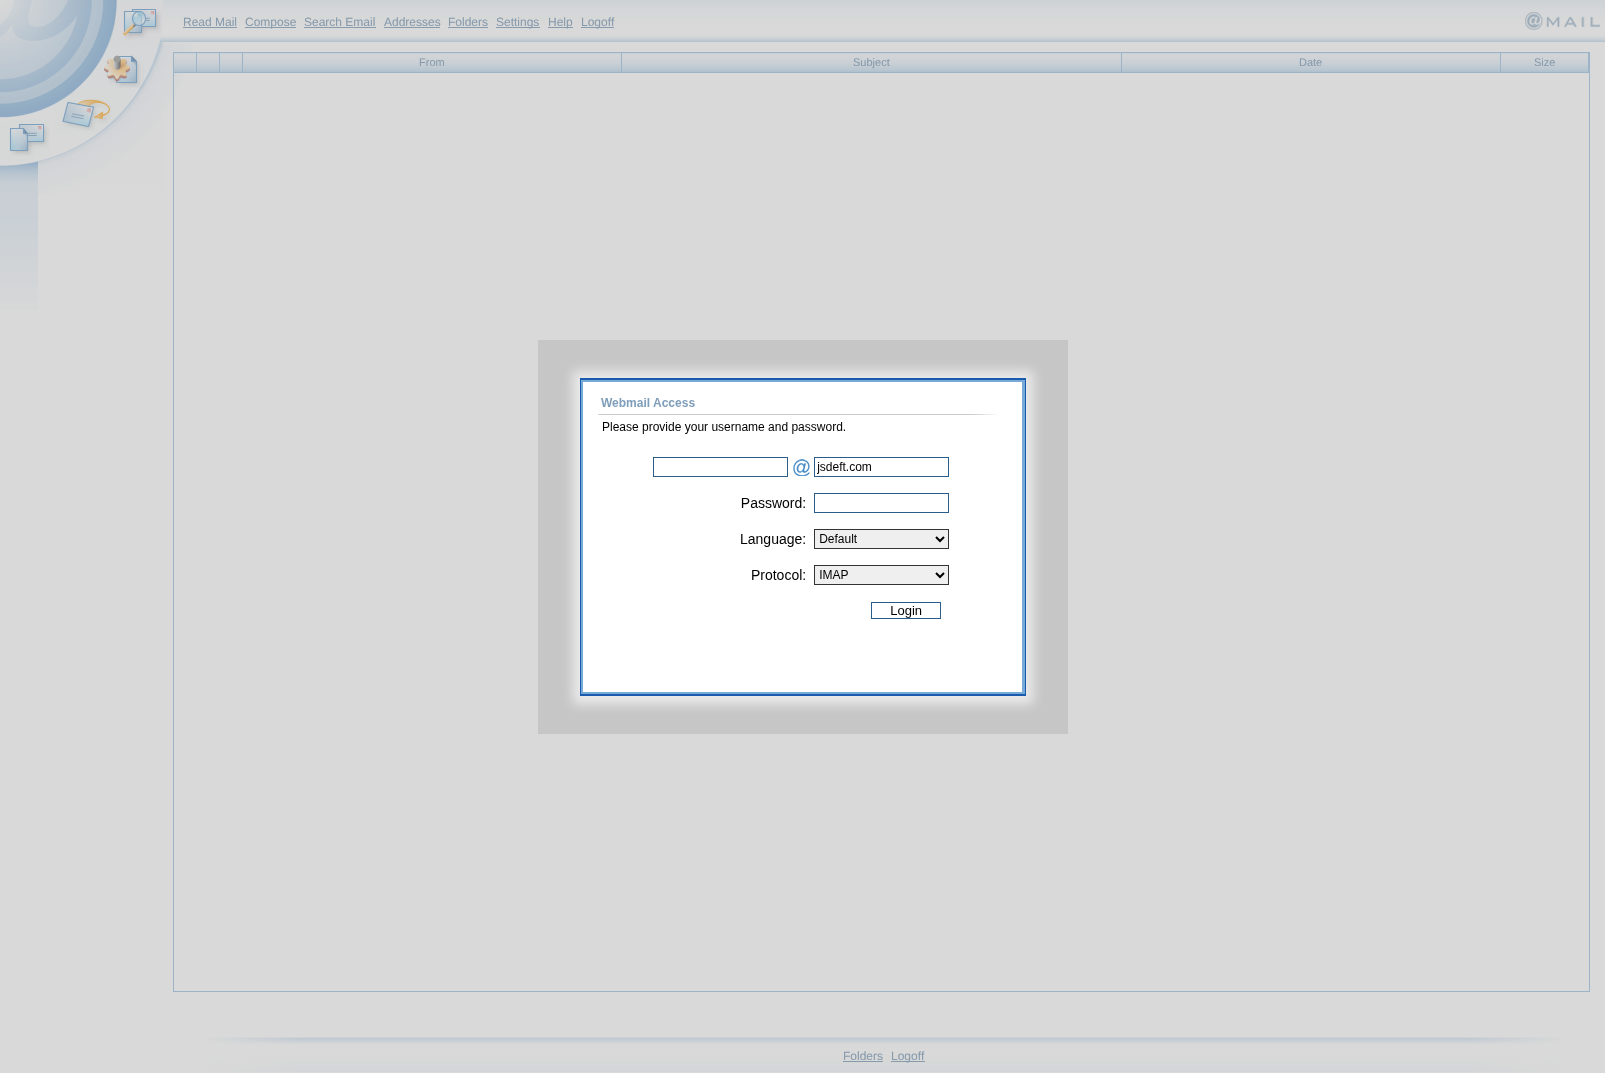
static SkFont makeFont(const char* family, int weight, float size, bool italic = false) {
  SkFontStyle style(weight, SkFontStyle::kNormal_Width,
    italic ? SkFontStyle::kItalic_Slant : SkFontStyle::kUpright_Slant);
  SkFont result(fontMgr->matchFamilyStyle(family, style), size);
  result.setSubpixel(true);
  return result;
}

static void text(SkCanvas* c, const char* s, float x, float y, const SkFont& font, SkColor color) {
  SkPaint ink(SkColor4f::FromColor(color));
  ink.setAntiAlias(true);
  c->drawString(s, x, y, font, ink);
}

static void box(SkCanvas* c, float l, float t, float r, float b, SkColor color) {
  SkPaint ink(SkColor4f::FromColor(color));
  ink.setAntiAlias(true);
  c->drawRect(SkRect::MakeLTRB(l, t, r, b), ink);
}

static void picture(SkCanvas* c, const char* path, float l, float t, float r, float b) {
  auto image = SkImages::DeferredFromEncodedData(SkData::MakeFromFileName(path));
  c->drawImageRect(image, SkRect::MakeLTRB(l, t, r, b), SkSamplingOptions());
}

void draw(SkCanvas* c) {
  SkPaint paint;
  paint.setAntiAlias(true);
  c->clear(0xffd9d9d9);
  picture(c, "img_02.png", 0, 0, 163, 45);
  picture(c, "img_01.png", 122, 9, 161, 40);
  picture(c, "img_03.png", 0, 45, 163, 90);
  picture(c, "img_04.png", 0, 90, 55, 195);
  picture(c, "img_05.png", 55, 90, 163, 191);
  box(c, 0, 195, 38, 217, 0xffc9cfd5);
  picture(c, "img_06.png", 0, 217, 38, 310);
  picture(c, "img_07.png", 163, 0, 1520, 42);
  SkFont face1 = makeFont("Liberation Sans", 400, 12);
  text(c, "Read Mail", 183, 26, face1, 0xff879bad);
  box(c, 183, 27, 237, 28, 0xff879bad);
  box(c, 245, 27, 296, 28, 0xff879bad);
  text(c, "Compose", 245, 26, face1, 0xff879bad);
  text(c, "Search Email", 304, 26, face1, 0xff879bad);
  box(c, 304, 27, 376, 28, 0xff879bad);
  text(c, "Addresses", 384, 26, face1, 0xff879bad);
  box(c, 384, 27, 440, 28, 0xff879bad);
  text(c, "Folders", 448, 26, face1, 0xff879bad);
  box(c, 448, 27, 488, 28, 0xff879bad);
  box(c, 496, 27, 540, 28, 0xff879bad);
  text(c, "Settings", 496, 26, face1, 0xff879bad);
  box(c, 548, 27, 573, 28, 0xff879bad);
  text(c, "Help", 548, 26, face1, 0xff879bad);
  box(c, 581, 27, 614, 28, 0xff879bad);
  text(c, "Logoff", 581, 26, face1, 0xff879bad);
  picture(c, "img_08.png", 1520, 0, 1605, 42);
  picture(c, "img_09.png", 1525, 12, 1600, 30);
  picture(c, "img_10.png", 163, 42, 193, 111);
  paint.setStyle(SkPaint::kStroke_Style);
  paint.setStrokeWidth(1);
  paint.setColor(0xff9cb3c8);
  c->drawRect(SkRect::MakeLTRB(173.5f, 52.5f, 1589.5f, 991.5f), paint);
  box(c, 174, 53, 1589, 54, 0xffc9cfd5);
  box(c, 196, 53, 197, 72, 0xff9cb3c8);
  box(c, 219, 53, 220, 72, 0xff9cb3c8);
  box(c, 242, 53, 243, 72, 0xff9cb3c8);
  box(c, 621, 53, 622, 72, 0xff9cb3c8);
  box(c, 1121, 53, 1122, 72, 0xff9cb3c8);
  box(c, 1500, 53, 1501, 72, 0xff9cb3c8);
  box(c, 1588, 53, 1589, 72, 0xff9cb3c8);
  picture(c, "img_11.png", 174, 54, 196, 72);
  picture(c, "img_11.png", 197, 54, 219, 72);
  picture(c, "img_11.png", 220, 54, 242, 72);
  picture(c, "img_12.png", 243, 54, 621, 72);
  SkFont face2 = makeFont("Liberation Sans", 400, 11);
  text(c, "From", 419, 66, face2, 0xff879bad);
  picture(c, "img_13.png", 622, 54, 1121, 72);
  text(c, "Subject", 853, 66, face2, 0xff879bad);
  picture(c, "img_12.png", 1122, 54, 1500, 72);
  text(c, "Date", 1299, 66, face2, 0xff879bad);
  picture(c, "img_14.png", 1501, 54, 1588, 72);
  text(c, "Size", 1534, 66, face2, 0xff879bad);
  box(c, 174, 72, 1589, 73, 0xff9cb3c8);
  picture(c, "img_15.png", 207, 1037, 299, 1072);
  picture(c, "img_16.png", 299, 1037, 1469, 1072);
  text(c, "Folders", 843, 1060, face1, 0xff879bad);
  box(c, 843, 1061, 883, 1062, 0xff879bad);
  box(c, 891, 1061, 925, 1062, 0xff879bad);
  text(c, "Logoff", 891, 1060, face1, 0xff879bad);
  picture(c, "img_17.png", 1469, 1037, 1561, 1072);
  picture(c, "img_18.png", 104, 55, 141, 88);
  picture(c, "img_19.png", 62, 99, 111, 131);
  picture(c, "img_20.png", 9, 124, 49, 156);
  picture(c, "img_21.png", 538, 340, 1068, 734);
  box(c, 581, 380, 1025, 694, 0xff78aad7);
  box(c, 580, 378, 1026, 380, 0xff185aad);
  box(c, 1025, 378, 1026, 696, 0xff185aad);
  box(c, 580, 694, 1026, 696, 0xff185aad);
  box(c, 580, 378, 581, 696, 0xff185aad);
  box(c, 583, 382, 1022, 692, 0xffffffff);
  picture(c, "img_22.png", 598, 398, 997, 619);
}
